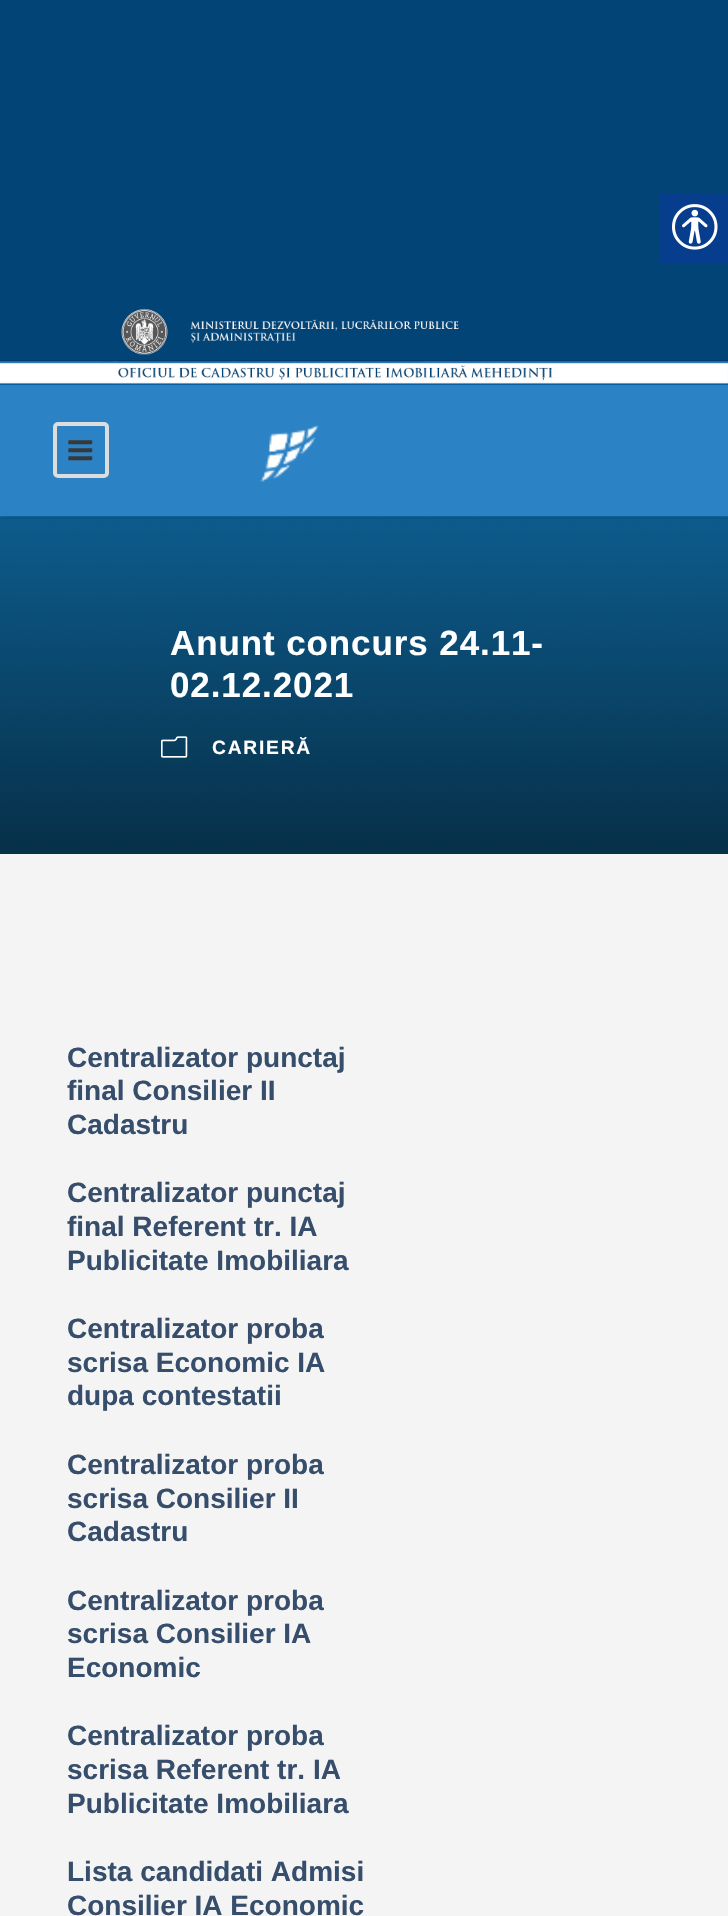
static SkFont makeFont(const char* family, int weight, float size, bool italic = false) {
  SkFontStyle style(weight, SkFontStyle::kNormal_Width,
    italic ? SkFontStyle::kItalic_Slant : SkFontStyle::kUpright_Slant);
  SkFont result(fontMgr->matchFamilyStyle(family, style), size);
  result.setSubpixel(true);
  return result;
}

static void text(SkCanvas* c, const char* s, float x, float y, const SkFont& font, SkColor color) {
  SkPaint ink(SkColor4f::FromColor(color));
  ink.setAntiAlias(true);
  c->drawString(s, x, y, font, ink);
}

static void spacedText(SkCanvas* c, const char* s, float x, float y, const SkFont& font, const SkPaint& ink, float letter, float word) {
  std::vector<SkGlyphID> glyphs(font.countText(s, strlen(s), SkTextEncoding::kUTF8));
  std::vector<float> xs(glyphs.size());
  font.textToGlyphs(s, strlen(s), SkTextEncoding::kUTF8, glyphs);
  font.getXPos(glyphs, xs, x);
  float extra = 0;
  for (size_t i = 0; i < glyphs.size(); i++) {
    xs[i] += extra;
    extra += letter + word * (glyphs[i] == font.unicharToGlyph(' '));
  }
  c->drawTextBlob(SkTextBlob::MakeFromPosHGlyphs(glyphs, xs, y, font), 0, 0, ink);
}

static void box(SkCanvas* c, float l, float t, float r, float b, SkColor color) {
  SkPaint ink(SkColor4f::FromColor(color));
  ink.setAntiAlias(true);
  c->drawRect(SkRect::MakeLTRB(l, t, r, b), ink);
}

static void picture(SkCanvas* c, const char* path, float l, float t, float r, float b) {
  auto image = SkImages::DeferredFromEncodedData(SkData::MakeFromFileName(path));
  c->drawImageRect(image, SkRect::MakeLTRB(l, t, r, b), SkSamplingOptions());
}

void draw(SkCanvas* c) {
  SkPaint paint;
  paint.setAntiAlias(true);
  c->clear(0xff024476);
  box(c, 660, 193, 728, 263, 0xff063d8d);
  picture(c, "img_01.png", 672, 204, 718, 250);
  picture(c, "img_02.png", 0, 308, 728, 385);
  box(c, 0, 516, 728, 854, 0xff117ec2);
  picture(c, "img_05.png", 0, 516, 728, 854);
  paint.setColor(0x1a000000);
  paint.setMaskFilter(SkMaskFilter::MakeBlur(kNormal_SkBlurStyle, 2));
  c->drawRect(SkRect::MakeLTRB(0, 387, 728, 518), paint);
  paint.setMaskFilter(nullptr);
  box(c, 0, 385, 728, 516, 0xff2b82c5);
  paint.setStyle(SkPaint::kStroke_Style);
  paint.setStrokeWidth(4);
  paint.setColor(0xffdddddd);
  c->drawRoundRect(SkRect::MakeLTRB(55, 424, 107, 476), 3, 3, paint);
  picture(c, "img_03.png", 68, 440, 93, 461);
  picture(c, "img_04.png", 260, 425, 319, 482);
  box(c, 0, 854, 728, 1916, 0xfff4f4f4);
  SkFont face1 = makeFont("Liberation Sans", 700, 35);
  paint.setStyle(SkPaint::kFill_Style);
  paint.setColor(0xffffffff);
  spacedText(c, "Anunt concurs 24.11-", 170, 655, face1, paint, 0.9f, 0);
  spacedText(c, "02.12.2021", 170, 697, face1, paint, 0.9f, 0);
  picture(c, "img_06.png", 161, 736, 188, 758);
  SkFont face2 = makeFont("Liberation Sans", 700, 19.25f);
  spacedText(c, "CARIERĂ", 212, 754, face2, paint, 1.75f, 0);
  SkFont face3 = makeFont("Liberation Sans", 700, 28);
  text(c, "Centralizator punctaj", 67, 1067, face3, 0xff364e6b);
  text(c, "final Consilier II", 67, 1100, face3, 0xff364e6b);
  text(c, "Cadastru", 67, 1134, face3, 0xff364e6b);
  text(c, "Centralizator punctaj", 67, 1202, face3, 0xff364e6b);
  text(c, "final Referent tr. IA", 67, 1236, face3, 0xff364e6b);
  text(c, "Publicitate Imobiliara", 67, 1270, face3, 0xff364e6b);
  text(c, "Centralizator proba", 67, 1338, face3, 0xff364e6b);
  text(c, "scrisa Economic IA", 67, 1372, face3, 0xff364e6b);
  text(c, "dupa contestatii", 67, 1405, face3, 0xff364e6b);
  text(c, "Centralizator proba", 67, 1474, face3, 0xff364e6b);
  text(c, "scrisa Consilier II", 67, 1508, face3, 0xff364e6b);
  text(c, "Cadastru", 67, 1541, face3, 0xff364e6b);
  text(c, "Centralizator proba", 67, 1610, face3, 0xff364e6b);
  text(c, "scrisa Consilier IA", 67, 1643, face3, 0xff364e6b);
  text(c, "Economic", 67, 1677, face3, 0xff364e6b);
  text(c, "Centralizator proba", 67, 1745, face3, 0xff364e6b);
  text(c, "scrisa Referent tr. IA", 67, 1779, face3, 0xff364e6b);
  text(c, "Publicitate Imobiliara", 67, 1813, face3, 0xff364e6b);
  text(c, "Lista candidati Admisi", 67, 1881, face3, 0xff364e6b);
  text(c, "Consilier IA Economic", 67, 1915, face3, 0xff364e6b);
}
